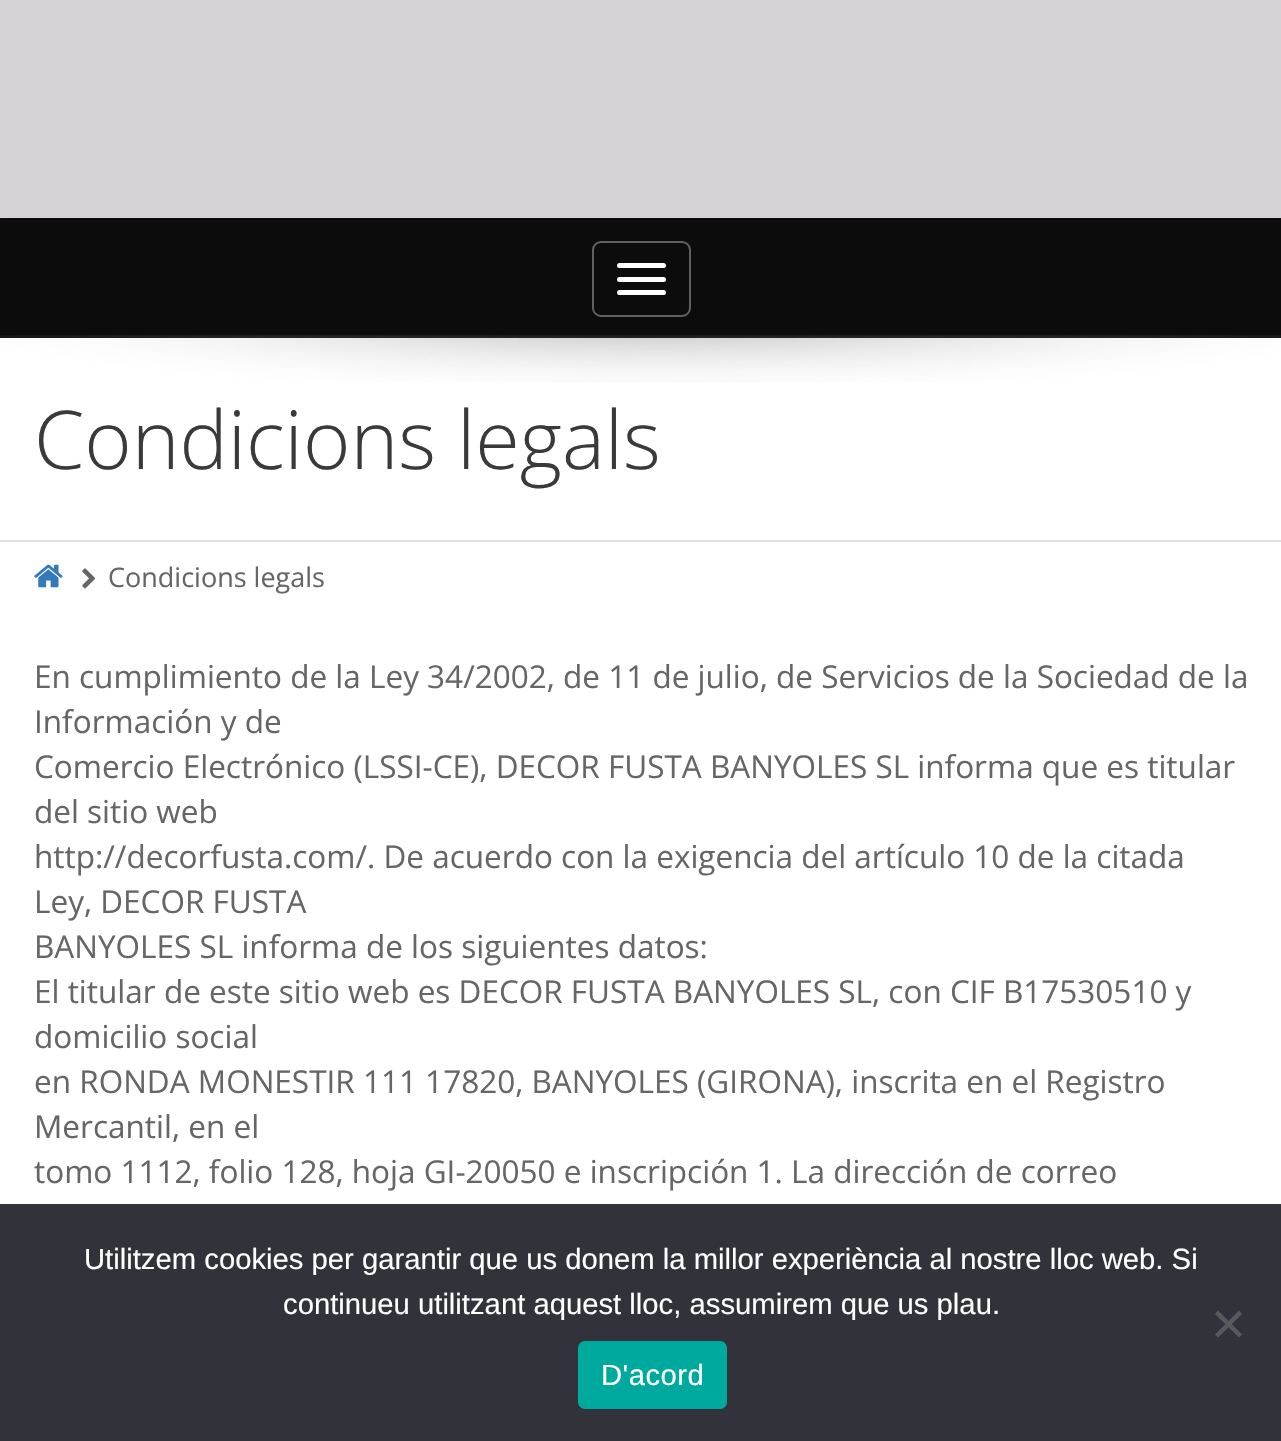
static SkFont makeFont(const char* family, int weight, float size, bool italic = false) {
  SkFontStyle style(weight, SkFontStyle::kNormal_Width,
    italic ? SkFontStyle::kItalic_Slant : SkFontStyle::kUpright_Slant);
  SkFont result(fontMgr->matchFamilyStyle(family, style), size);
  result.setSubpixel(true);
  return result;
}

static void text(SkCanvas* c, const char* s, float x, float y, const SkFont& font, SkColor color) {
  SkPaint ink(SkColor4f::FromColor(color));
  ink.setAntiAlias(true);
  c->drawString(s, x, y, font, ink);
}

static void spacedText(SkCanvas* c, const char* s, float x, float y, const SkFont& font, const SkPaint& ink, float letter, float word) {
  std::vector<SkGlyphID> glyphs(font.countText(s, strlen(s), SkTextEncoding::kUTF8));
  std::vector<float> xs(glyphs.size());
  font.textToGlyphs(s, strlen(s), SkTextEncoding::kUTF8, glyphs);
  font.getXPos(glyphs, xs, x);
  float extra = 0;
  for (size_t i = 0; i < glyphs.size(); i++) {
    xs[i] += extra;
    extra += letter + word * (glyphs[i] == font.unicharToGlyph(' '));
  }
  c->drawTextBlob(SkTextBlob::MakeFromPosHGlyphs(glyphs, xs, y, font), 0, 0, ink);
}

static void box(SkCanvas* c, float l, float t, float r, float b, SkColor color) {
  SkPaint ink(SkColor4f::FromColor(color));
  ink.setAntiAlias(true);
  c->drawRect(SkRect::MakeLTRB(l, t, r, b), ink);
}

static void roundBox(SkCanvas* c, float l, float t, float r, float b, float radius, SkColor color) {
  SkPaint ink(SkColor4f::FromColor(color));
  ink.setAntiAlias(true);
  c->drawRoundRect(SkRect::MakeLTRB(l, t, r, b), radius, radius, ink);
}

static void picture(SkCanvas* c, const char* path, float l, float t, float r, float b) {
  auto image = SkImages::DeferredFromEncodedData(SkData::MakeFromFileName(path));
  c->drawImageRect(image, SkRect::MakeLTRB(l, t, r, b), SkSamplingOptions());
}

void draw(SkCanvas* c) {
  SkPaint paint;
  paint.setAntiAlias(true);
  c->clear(0xffffffff);
  box(c, 0, 0, 1281, 218, 0xffd5d3d6);
  box(c, 0, 218, 1281, 338, 0xff0c0c0c);
  box(c, 2, 221, 1280, 223, 0xff0f0f0f);
  paint.setStyle(SkPaint::kStroke_Style);
  paint.setStrokeWidth(2);
  paint.setColor(0xff616161);
  c->drawRoundRect(SkRect::MakeLTRB(593, 242, 690, 316), 8, 8, paint);
  roundBox(c, 617, 263, 666, 268, 2.5f, 0xffffffff);
  roundBox(c, 617, 277, 666, 282, 2.5f, 0xffffffff);
  roundBox(c, 617, 290, 666, 295, 2.5f, 0xffffffff);
  picture(c, "img_01.png", 0, 335, 1281, 383);
  SkFont face1 = makeFont("Open Sans", 300, 81);
  text(c, "Condicions legals", 34, 469, face1, 0xff3a3a3a);
  box(c, 0, 540, 1281, 542, 0xffe0e0e0);
  picture(c, "img_02.png", 34, 564, 63, 588);
  picture(c, "img_03.png", 82, 568, 96, 589);
  SkFont face2 = makeFont("Open Sans", 400, 27);
  text(c, "Condicions legals", 108, 587, face2, 0xff666666);
  SkFont face3 = makeFont("Open Sans", 400, 31.5f);
  text(c, "En cumplimiento de la Ley 34/2002, de 11 de julio, de Servicios de la Sociedad de la", 34, 688, face3, 0xff666666);
  text(c, "Información y de", 34, 733, face3, 0xff666666);
  text(c, "Comercio Electrónico (LSSI-CE), DECOR FUSTA BANYOLES SL informa que es titular", 34, 778, face3, 0xff666666);
  text(c, "del sitio web", 34, 823, face3, 0xff666666);
  text(c, "http://decorfusta.com/. De acuerdo con la exigencia del artículo 10 de la citada", 34, 868, face3, 0xff666666);
  text(c, "Ley, DECOR FUSTA", 34, 913, face3, 0xff666666);
  text(c, "BANYOLES SL informa de los siguientes datos:", 34, 958, face3, 0xff666666);
  text(c, "El titular de este sitio web es DECOR FUSTA BANYOLES SL, con CIF B17530510 y", 34, 1003, face3, 0xff666666);
  text(c, "domicilio social", 34, 1048, face3, 0xff666666);
  text(c, "en RONDA MONESTIR 111 17820, BANYOLES (GIRONA), inscrita en el Registro", 34, 1093, face3, 0xff666666);
  text(c, "Mercantil, en el", 34, 1138, face3, 0xff666666);
  text(c, "tomo 1112, folio 128, hoja GI-20050 e inscripción 1. La dirección de correo", 34, 1183, face3, 0xff666666);
  box(c, 0, 1204, 1281, 1441, 0xff32323a);
  SkFont face4 = makeFont("Liberation Sans", 400, 29.25f);
  text(c, "Utilitzem cookies per garantir que us donem la millor experiència al nostre lloc web. Si", 84, 1269, face4, 0xffffffff);
  text(c, "continueu utilitzant aquest lloc, assumirem que us plau.", 283, 1314, face4, 0xffffffff);
  paint.setStyle(SkPaint::kFill_Style);
  paint.setColor(0xff59595d);
  c->drawPath(SkPathBuilder().moveTo(1239, 1310.5f).lineTo(1242, 1314).lineTo(1218, 1337.5f).lineTo(1215, 1334.5f).close().detach(), paint);
  c->drawPath(SkPathBuilder().moveTo(1215, 1314).lineTo(1218, 1310.5f).lineTo(1242, 1334.5f).lineTo(1239, 1337.5f).close().detach(), paint);
  roundBox(c, 578, 1341, 727, 1409, 7, 0xff00a99d);
  paint.setColor(0xffffffff);
  spacedText(c, "D'acord", 601, 1385, face4, paint, 0.5f, 0);
}
